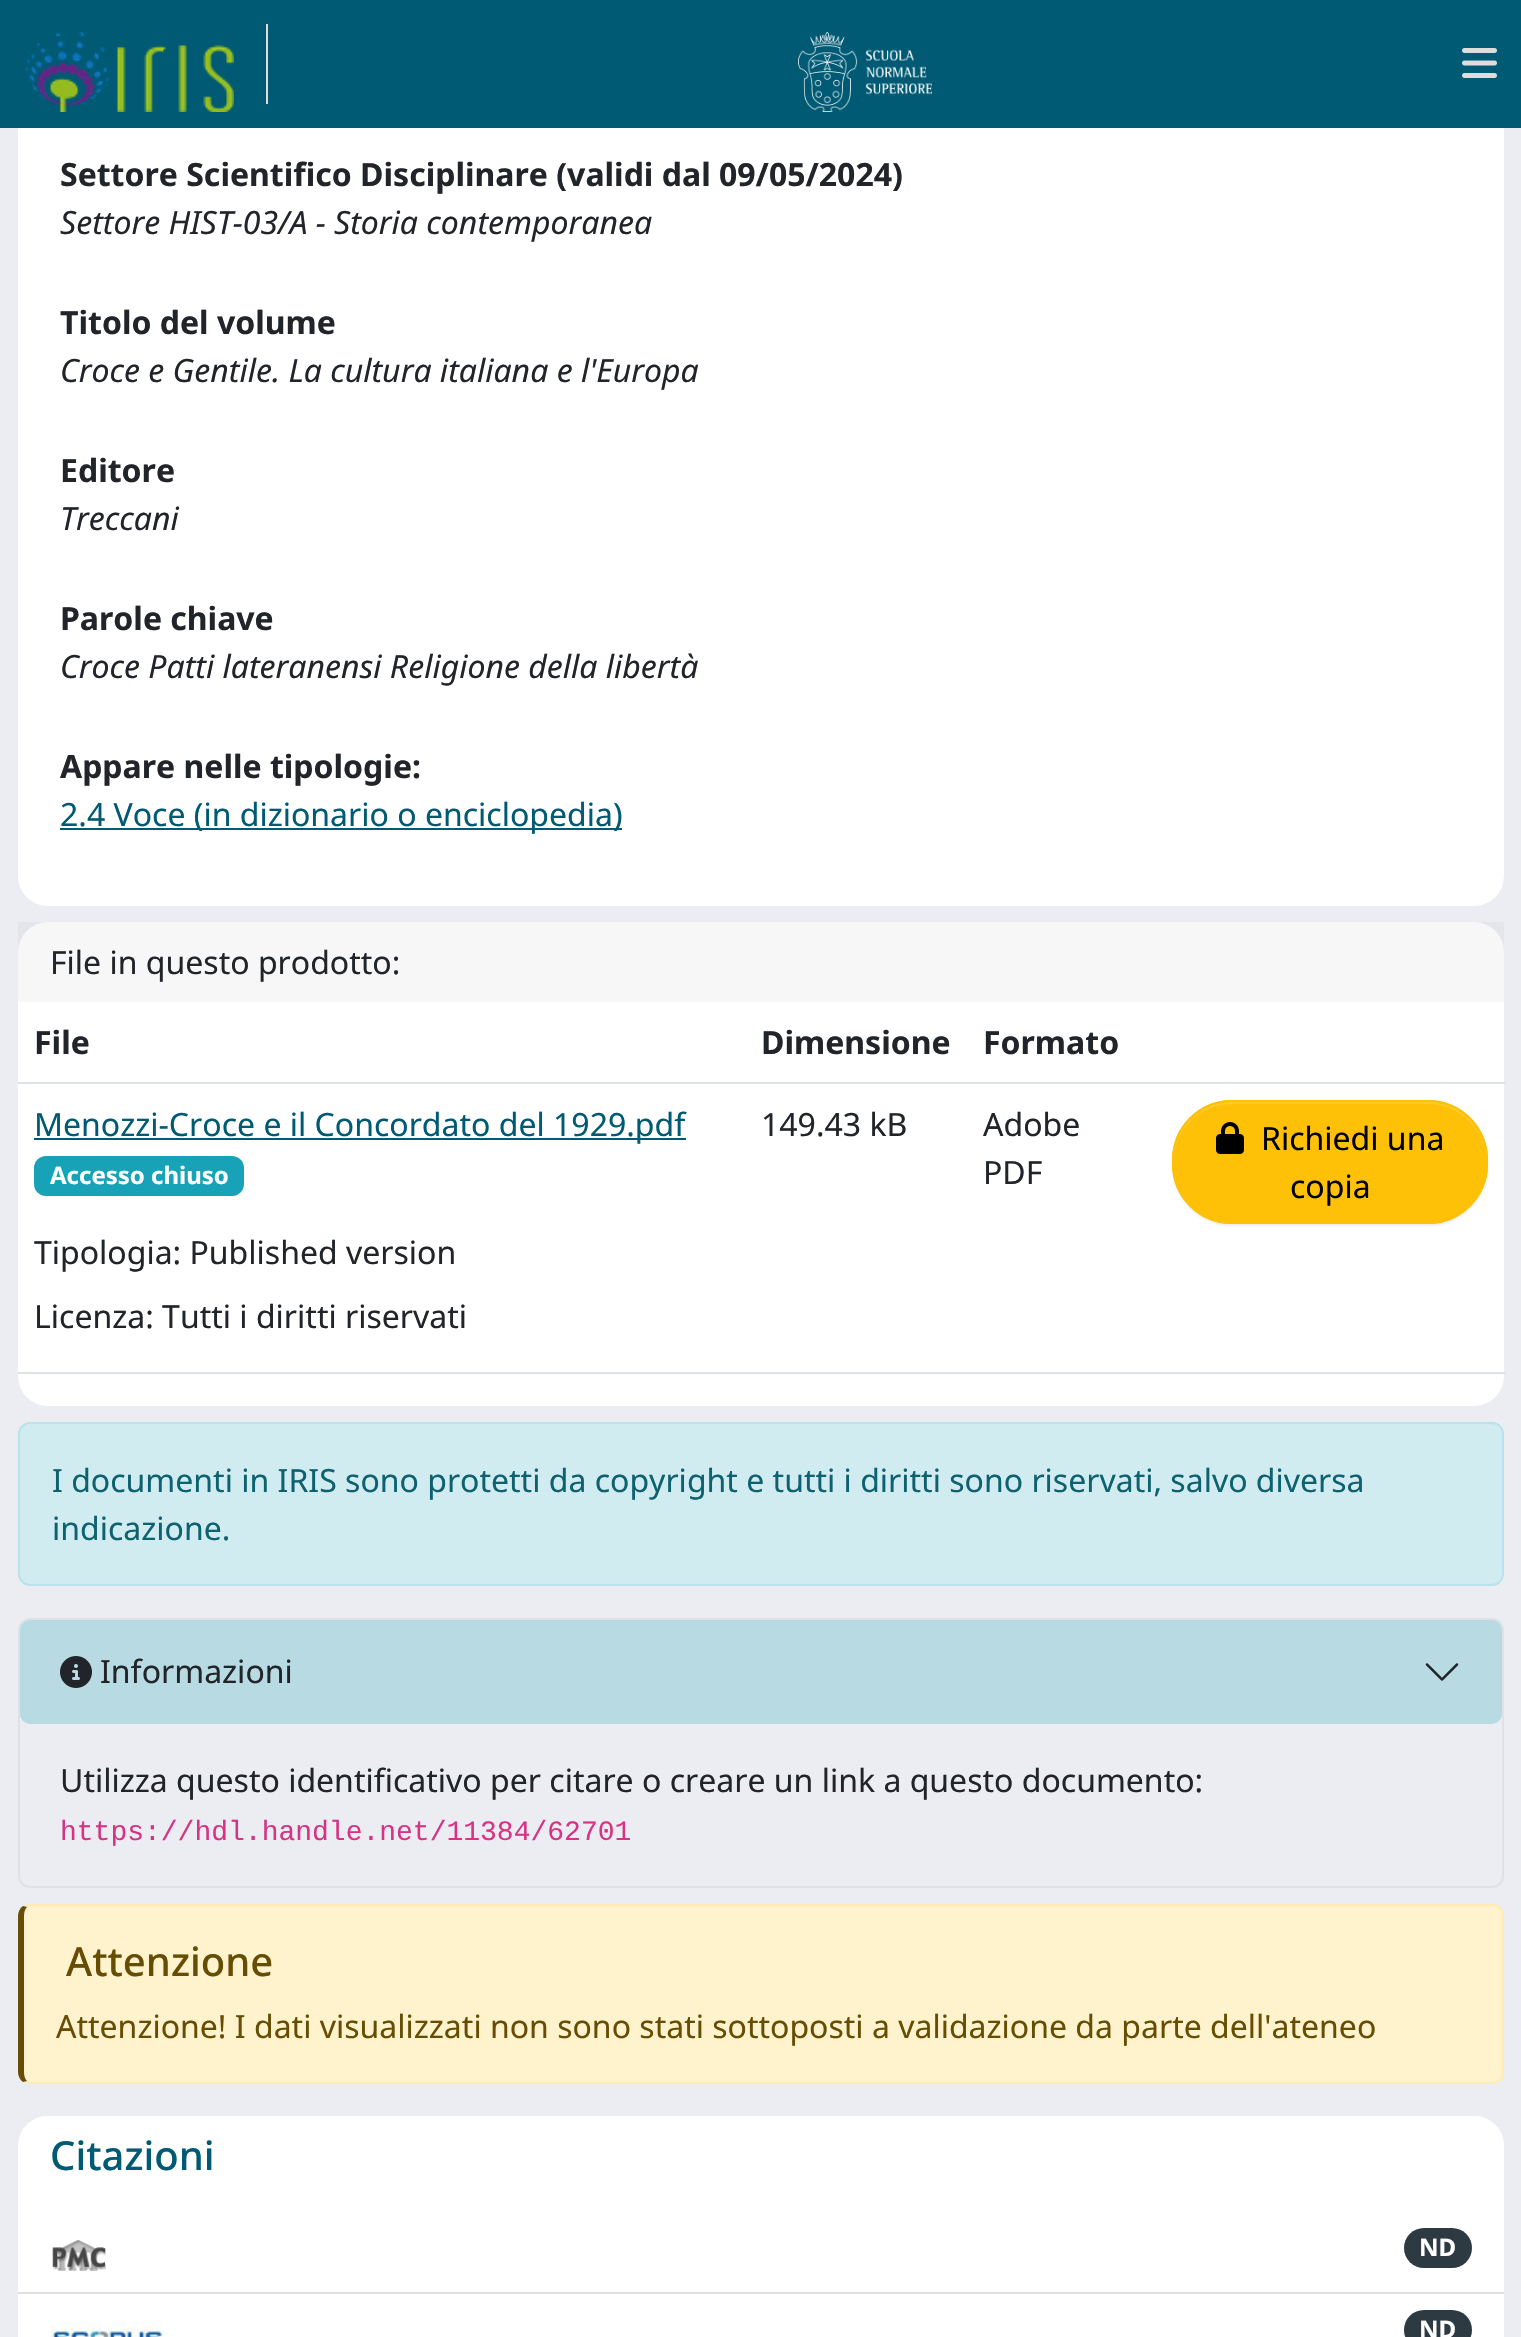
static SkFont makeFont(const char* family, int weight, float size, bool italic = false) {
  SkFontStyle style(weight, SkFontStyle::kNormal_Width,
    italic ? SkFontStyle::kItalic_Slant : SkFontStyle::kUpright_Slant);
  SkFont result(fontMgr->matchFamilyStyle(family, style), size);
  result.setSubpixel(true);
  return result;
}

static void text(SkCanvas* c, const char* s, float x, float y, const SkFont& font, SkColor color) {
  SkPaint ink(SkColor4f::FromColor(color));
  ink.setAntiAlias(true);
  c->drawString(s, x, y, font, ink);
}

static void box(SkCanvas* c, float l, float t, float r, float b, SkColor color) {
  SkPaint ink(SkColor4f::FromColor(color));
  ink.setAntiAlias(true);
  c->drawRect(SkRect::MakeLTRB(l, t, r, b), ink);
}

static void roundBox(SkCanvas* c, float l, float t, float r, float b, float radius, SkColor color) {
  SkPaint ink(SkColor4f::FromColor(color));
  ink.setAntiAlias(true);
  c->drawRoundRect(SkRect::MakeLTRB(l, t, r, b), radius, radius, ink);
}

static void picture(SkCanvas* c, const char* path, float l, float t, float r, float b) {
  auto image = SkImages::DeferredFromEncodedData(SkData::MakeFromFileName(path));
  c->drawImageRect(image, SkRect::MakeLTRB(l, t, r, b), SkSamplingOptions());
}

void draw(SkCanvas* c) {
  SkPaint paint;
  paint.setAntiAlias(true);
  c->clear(0xffecedf2);
  roundBox(c, 18, -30, 1504, 906, 30, 0xffffffff);
  box(c, 0, 0, 1521, 128, 0xff005a74);
  box(c, 266, 24, 268, 104, 0xffdddddd);
  picture(c, "img_01.png", 24, 32, 234, 112);
  picture(c, "img_02.png", 798, 32, 932, 112);
  picture(c, "img_03.png", 1462, 48, 1497, 78);
  SkFont face1 = makeFont("Noto Sans", 700, 32);
  text(c, "Settore Scientifico Disciplinare (validi dal 09/05/2024)", 60, 186, face1, 0xff212529);
  SkFont face2 = makeFont("Noto Sans", 400, 32, true);
  text(c, "Settore HIST-03/A - Storia contemporanea", 60, 234, face2, 0xff212529);
  text(c, "Titolo del volume", 60, 334, face1, 0xff212529);
  text(c, "Croce e Gentile. La cultura italiana e l'Europa", 60, 382, face2, 0xff212529);
  text(c, "Editore", 60, 482, face1, 0xff212529);
  text(c, "Treccani", 60, 530, face2, 0xff212529);
  text(c, "Parole chiave", 60, 630, face1, 0xff212529);
  text(c, "Croce Patti lateranensi Religione della libertà", 60, 678, face2, 0xff212529);
  text(c, "Appare nelle tipologie:", 60, 778, face1, 0xff212529);
  box(c, 60, 828, 622, 830, 0xff005a74);
  SkFont face3 = makeFont("Noto Sans", 400, 32);
  text(c, "2.4 Voce (in dizionario o enciclopedia)", 60, 826, face3, 0xff005a74);
  roundBox(c, 18, 922, 1504, 1406, 30, 0xffffffff);
  box(c, 18, 922, 1504, 1002, 0x08000000);
  text(c, "File in questo prodotto:", 50, 974, face3, 0xff212529);
  text(c, "File", 34, 1054, face1, 0xff212529);
  text(c, "Dimensione", 761, 1054, face1, 0xff212529);
  text(c, "Formato", 983, 1054, face1, 0xff212529);
  box(c, 18, 1082, 1506, 1084, 0xffdee2e6);
  box(c, 34, 1138, 686, 1140, 0xff005a74);
  text(c, "Menozzi-Croce e il Concordato del 1929.pdf", 34, 1136, face3, 0xff005a74);
  roundBox(c, 34, 1156, 244, 1196, 12, 0xff17a2b8);
  SkFont face4 = makeFont("Noto Sans", 700, 24);
  text(c, "Accesso chiuso", 50, 1184, face4, 0xffffffff);
  text(c, "Tipologia: Published version", 34, 1264, face3, 0xff212529);
  text(c, "Licenza: Tutti i diritti riservati", 34, 1328, face3, 0xff212529);
  text(c, "149.43 kB", 761, 1136, face3, 0xff212529);
  text(c, "Adobe", 983, 1136, face3, 0xff212529);
  text(c, "PDF", 983, 1184, face3, 0xff212529);
  box(c, 18, 1372, 1506, 1374, 0xffdee2e6);
  paint.setColor(0x12000000);
  paint.setMaskFilter(SkMaskFilter::MakeBlur(kNormal_SkBlurStyle, 1));
  c->drawRoundRect(SkRect::MakeLTRB(1172, 1102, 1488, 1226), 60, 60, paint);
  paint.setMaskFilter(nullptr);
  roundBox(c, 1172, 1100, 1488, 1224, 60, 0xffffc107);
  paint.setColor(0xffffca2c);
  c->drawPath(SkPathBuilder().moveTo(1232, 1104).lineTo(1428, 1104).cubicTo(1460, 1104, 1486, 1130, 1486, 1162).lineTo(1486, 1160).cubicTo(1486, 1128, 1460, 1102, 1428, 1102).lineTo(1232, 1102).cubicTo(1200, 1102, 1174, 1128, 1174, 1160).lineTo(1174, 1162).cubicTo(1174, 1130, 1200, 1104, 1232, 1104).close().detach(), paint);
  paint.setStyle(SkPaint::kStroke_Style);
  paint.setStrokeWidth(2);
  paint.setColor(0xffffc107);
  c->drawRoundRect(SkRect::MakeLTRB(1173, 1101, 1487, 1223), 59, 59, paint);
  picture(c, "img_04.png", 1216, 1122, 1244, 1154);
  text(c, "Richiedi una", 1261, 1150, face3, 0xff000000);
  text(c, "copia", 1290, 1198, face3, 0xff000000);
  paint.setStyle(SkPaint::kFill_Style);
  paint.setColor(0xffd1ecf1);
  c->drawRoundRect(SkRect::MakeLTRB(19, 1423, 1503, 1585), 11, 11, paint);
  paint.setStyle(SkPaint::kStroke_Style);
  paint.setColor(0xffb9e3ea);
  c->drawRoundRect(SkRect::MakeLTRB(19, 1423, 1503, 1585), 11, 11, paint);
  text(c, "I documenti in IRIS sono protetti da copyright e tutti i diritti sono riservati, salvo diversa", 52, 1492, face3, 0xff0e616e);
  text(c, "indicazione.", 52, 1540, face3, 0xff0e616e);
  paint.setColor(0xffdee2e6);
  c->drawRoundRect(SkRect::MakeLTRB(19, 1619, 1503, 1887), 11, 11, paint);
  roundBox(c, 20, 1620, 1502, 1724, 10, 0x4017a2b8);
  picture(c, "img_05.png", 60, 1656, 92, 1688);
  text(c, "Informazioni", 100, 1683, face3, 0xff212529);
  picture(c, "img_06.png", 1425, 1663, 1459, 1681);
  text(c, "Utilizza questo identificativo per citare o creare un link a questo documento:", 60, 1792, face3, 0xff212529);
  SkFont face5 = makeFont("Liberation Mono", 400, 28);
  text(c, "https://hdl.handle.net/11384/62701", 60, 1840, face5, 0xffd63384);
  paint.setStyle(SkPaint::kFill_Style);
  paint.setColor(0xfffff3cd);
  c->drawPath(SkPathBuilder().moveTo(30, 1906).lineTo(1492, 1906).cubicTo(1498, 1906, 1502, 1910, 1502, 1916).lineTo(1502, 2072).cubicTo(1502, 2078, 1498, 2082, 1492, 2082).lineTo(30, 2082).cubicTo(27, 2082, 24, 2078, 24, 2072).lineTo(24, 1916).cubicTo(24, 1910, 27, 1906, 30, 1906).close().detach(), paint);
  paint.setColor(0xffffecb5);
  c->drawPath(SkPathBuilder().moveTo(30, 1904).cubicTo(27, 1904, 25, 1905, 23, 1906).lineTo(27, 1907).lineTo(30, 1906).lineTo(1492, 1906).cubicTo(1495, 1906, 1497, 1907, 1499, 1909).lineTo(1501, 1907).cubicTo(1498, 1905, 1496, 1904, 1492, 1904).close().detach(), paint);
  c->drawPath(SkPathBuilder().moveTo(1504, 2072).lineTo(1504, 1916).cubicTo(1504, 1912, 1503, 1910, 1501, 1907).lineTo(1499, 1909).cubicTo(1501, 1910, 1502, 1913, 1502, 1916).lineTo(1502, 2072).cubicTo(1502, 2075, 1501, 2078, 1499, 2079).lineTo(1501, 2081).cubicTo(1503, 2078, 1504, 2076, 1504, 2072).close().detach(), paint);
  c->drawPath(SkPathBuilder().moveTo(30, 2084).lineTo(1492, 2084).cubicTo(1496, 2084, 1498, 2083, 1501, 2081).lineTo(1499, 2079).cubicTo(1497, 2081, 1495, 2082, 1492, 2082).lineTo(30, 2082).lineTo(27, 2081).lineTo(23, 2082).cubicTo(25, 2083, 27, 2084, 30, 2084).close().detach(), paint);
  paint.setColor(0xff664d03);
  c->drawPath(SkPathBuilder().moveTo(18, 1916).lineTo(18, 2072).cubicTo(18, 2076, 20, 2080, 23, 2082).lineTo(27, 2081).cubicTo(25, 2079, 24, 2076, 24, 2072).lineTo(24, 1916).cubicTo(24, 1912, 25, 1909, 27, 1907).lineTo(23, 1906).cubicTo(20, 1908, 18, 1912, 18, 1916).close().detach(), paint);
  SkFont face6 = makeFont("Noto Sans", 500, 40);
  text(c, "Attenzione", 66, 1976, face6, 0xff664d03);
  text(c, "Attenzione! I dati visualizzati non sono stati sottoposti a validazione da parte dell'ateneo", 56, 2038, face3, 0xff664d03);
  roundBox(c, 18, 2116, 1504, 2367, 30, 0xffffffff);
  paint.setColor(0xffffffff);
  c->drawPath(SkPathBuilder().moveTo(48, 2116).lineTo(1474, 2116).cubicTo(1490.5f, 2116, 1504, 2129.5f, 1504, 2146).lineTo(1504, 2212).lineTo(18, 2212).lineTo(18, 2146).cubicTo(18, 2129.5f, 31.5f, 2116, 48, 2116).close().detach(), paint);
  text(c, "Citazioni", 50, 2170, face6, 0xff005a74);
  box(c, 18, 2292, 1504, 2294, 0xffdfdfdf);
  picture(c, "img_07.png", 52, 2239, 106, 2271);
  roundBox(c, 1404, 2228, 1472, 2268, 20, 0xff2d3a42);
  text(c, "ND", 1419, 2256, face4, 0xffffffff);
  picture(c, "img_08.png", 50, 2321, 162, 2337);
  roundBox(c, 1404, 2310, 1472, 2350, 20, 0xff2d3a42);
  text(c, "ND", 1419, 2338, face4, 0xffffffff);
}
